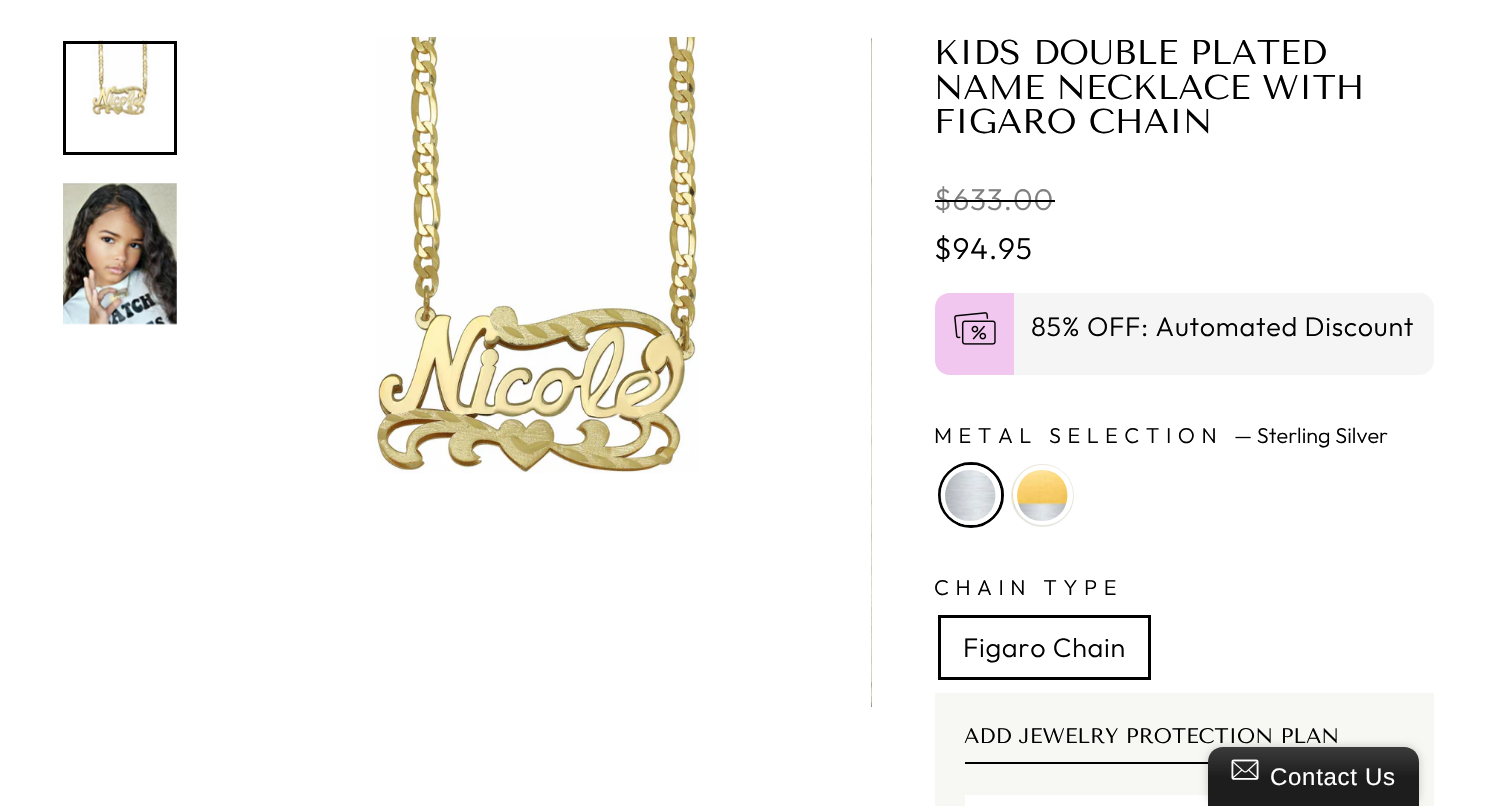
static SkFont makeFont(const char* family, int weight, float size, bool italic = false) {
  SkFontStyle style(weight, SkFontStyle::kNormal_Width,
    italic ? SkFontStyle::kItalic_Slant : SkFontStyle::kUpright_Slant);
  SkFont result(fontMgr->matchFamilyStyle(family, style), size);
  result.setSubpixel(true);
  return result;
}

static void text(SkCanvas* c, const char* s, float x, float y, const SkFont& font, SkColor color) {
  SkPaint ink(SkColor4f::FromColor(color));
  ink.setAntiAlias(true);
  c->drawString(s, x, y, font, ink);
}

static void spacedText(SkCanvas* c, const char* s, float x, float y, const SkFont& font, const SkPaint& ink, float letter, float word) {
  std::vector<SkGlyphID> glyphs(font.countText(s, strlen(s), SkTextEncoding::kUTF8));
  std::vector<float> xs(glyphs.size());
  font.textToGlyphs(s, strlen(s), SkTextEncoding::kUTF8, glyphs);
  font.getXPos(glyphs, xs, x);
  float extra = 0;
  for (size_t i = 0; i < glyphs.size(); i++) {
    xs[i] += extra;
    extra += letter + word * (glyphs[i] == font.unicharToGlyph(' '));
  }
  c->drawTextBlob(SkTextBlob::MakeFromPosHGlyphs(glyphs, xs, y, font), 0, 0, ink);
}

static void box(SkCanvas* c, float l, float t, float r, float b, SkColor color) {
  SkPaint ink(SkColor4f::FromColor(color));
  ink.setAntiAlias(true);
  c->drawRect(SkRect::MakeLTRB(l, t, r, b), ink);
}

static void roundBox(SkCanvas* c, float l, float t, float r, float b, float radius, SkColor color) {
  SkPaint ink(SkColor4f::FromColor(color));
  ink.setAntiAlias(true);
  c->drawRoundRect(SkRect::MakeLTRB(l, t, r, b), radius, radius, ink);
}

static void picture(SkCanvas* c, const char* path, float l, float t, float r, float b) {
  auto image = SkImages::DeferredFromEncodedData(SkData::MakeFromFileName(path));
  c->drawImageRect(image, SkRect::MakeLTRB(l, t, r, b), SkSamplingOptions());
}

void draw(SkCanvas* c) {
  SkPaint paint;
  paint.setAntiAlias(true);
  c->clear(0xffffffff);
  picture(c, "img_01.png", 90, 40, 150, 117);
  paint.setStyle(SkPaint::kStroke_Style);
  paint.setStrokeWidth(3);
  paint.setColor(0xff000000);
  c->drawRect(SkRect::MakeLTRB(64.5f, 42.5f, 175.5f, 153.5f), paint);
  picture(c, "img_02.png", 63, 183, 177, 325);
  picture(c, "img_03.png", 375, 37, 699, 473);
  picture(c, "img_04.png", 871, 37, 872, 707);
  SkFont face1 = makeFont("Tenor Sans", 400, 34.4f);
  text(c, "KIDS DOUBLE PLATED", 934, 64, face1, 0xff000000);
  text(c, "NAME NECKLACE WITH", 934, 99, face1, 0xff000000);
  text(c, "FIGARO CHAIN", 934, 133, face1, 0xff000000);
  SkFont face2 = makeFont("Outfit", 300, 30);
  paint.setStyle(SkPaint::kFill_Style);
  paint.setColor(0xff808080);
  spacedText(c, "$633.00", 934, 210, face2, paint, 0.7f, 0);
  box(c, 935, 200, 1055, 202, 0xff000000);
  paint.setColor(0xff000000);
  spacedText(c, "$94.95", 934, 259, face2, paint, 0.7f, 0);
  roundBox(c, 935, 293, 1434, 375, 15, 0xfff5f5f6);
  paint.setColor(0xfff2c7ef);
  c->drawPath(SkPathBuilder().moveTo(950, 293).lineTo(1014, 293).lineTo(1014, 375).lineTo(950, 375).cubicTo(941.5f, 375, 935, 368.5f, 935, 360).lineTo(935, 308).cubicTo(935, 299.5f, 941.5f, 293, 950, 293).close().detach(), paint);
  picture(c, "img_05.png", 954, 312, 996, 345);
  SkFont face3 = makeFont("Outfit", 300, 27);
  paint.setColor(0xff000000);
  spacedText(c, "85% OFF: Automated Discount", 1031, 336, face3, paint, 0.7f, 0);
  SkFont face4 = makeFont("Outfit", 300, 21.6f);
  spacedText(c, "METAL SELECTION", 934, 443, face4, paint, 6.5f, 0);
  text(c, "— Sterling Silver", 1234, 443, face4, 0xff000000);
  paint.setStyle(SkPaint::kStroke_Style);
  c->drawCircle(971, 495, 31.5f, paint);
  picture(c, "img_06.png", 940, 465, 1000, 525);
  paint.setStyle(SkPaint::kFill_Style);
  paint.setColor(0xffffffff);
  c->drawPath(SkPathBuilder(SkPathFillType::kEvenOdd).moveTo(971, 465).cubicTo(954, 465, 941, 478, 941, 495).cubicTo(941, 512, 954, 525, 971, 525).cubicTo(988, 525, 1001, 512, 1001, 495).cubicTo(1001, 478, 988, 465, 971, 465).close().moveTo(970, 470).cubicTo(937, 470, 937, 521, 970, 521).cubicTo(1004, 521, 1004, 470, 970, 470).close().detach(), paint);
  paint.setStyle(SkPaint::kStroke_Style);
  paint.setStrokeWidth(2);
  paint.setColor(0xffe8e8e1);
  c->drawCircle(1042.5f, 495.5f, 30.5f, paint);
  picture(c, "img_07.png", 1012, 465, 1073, 525);
  paint.setStyle(SkPaint::kFill_Style);
  paint.setColor(0xffffffff);
  c->drawPath(SkPathBuilder(SkPathFillType::kEvenOdd).moveTo(1043, 465).cubicTo(1026, 465, 1013, 478, 1013, 495).cubicTo(1013, 512, 1026, 525, 1043, 525).cubicTo(1060, 525, 1073, 512, 1073, 495).cubicTo(1073, 478, 1060, 465, 1043, 465).close().moveTo(1042, 470).cubicTo(1009, 470, 1009, 521, 1042, 521).cubicTo(1076, 521, 1076, 470, 1042, 470).close().detach(), paint);
  paint.setColor(0xff000000);
  spacedText(c, "CHAIN TYPE", 934, 595, face4, paint, 6.5f, 0);
  paint.setStyle(SkPaint::kStroke_Style);
  paint.setStrokeWidth(3);
  c->drawRect(SkRect::MakeLTRB(939.5f, 616.5f, 1149.5f, 678.5f), paint);
  paint.setStyle(SkPaint::kFill_Style);
  spacedText(c, "Figaro Chain", 963, 657, face3, paint, 0.7f, 0);
  box(c, 935, 693, 1434, 806, 0xfff7f7f3);
  box(c, 965, 762, 1208, 764, 0xff000000);
  SkFont face5 = makeFont("Tenor Sans", 400, 21);
  text(c, "ADD JEWELRY PROTECTION PLAN", 964, 743, face5, 0xff000000);
  box(c, 965, 795, 1208, 806, 0xffffffff);
  paint.setColor(0x33000000);
  paint.setMaskFilter(SkMaskFilter::MakeBlur(kNormal_SkBlurStyle, 4));
  c->drawRoundRect(SkRect::MakeLTRB(1208, 747, 1419, 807), 15, 15, paint);
  paint.setMaskFilter(nullptr);
  {
    const SkColor colors[] = {0xff3b3b3b, 0xff1d1d1d};
    const float stops[] = {0, 0.5f};
    const SkPoint ends[] = {{1313, 747}, {1313, 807}};
    paint.setShader(SkGradientShader::MakeLinear(ends, colors, stops, 2, SkTileMode::kClamp));
    paint.setAlpha(255);
  }
  c->drawPath(SkPathBuilder().moveTo(1223, 747).lineTo(1404, 747).cubicTo(1412.5f, 747, 1419, 753.5f, 1419, 762).lineTo(1419, 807).lineTo(1208, 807).lineTo(1208, 762).cubicTo(1208, 753.5f, 1214.5f, 747, 1223, 747).close().detach(), paint);
  picture(c, "img_08.png", 1231, 759, 1259, 780);
  SkFont face6 = makeFont("Liberation Sans", 400, 24);
  paint.setShader(nullptr);
  paint.setColor(0xffffffff);
  spacedText(c, "Contact Us", 1270, 785, face6, paint, 0.7f, 0);
}
